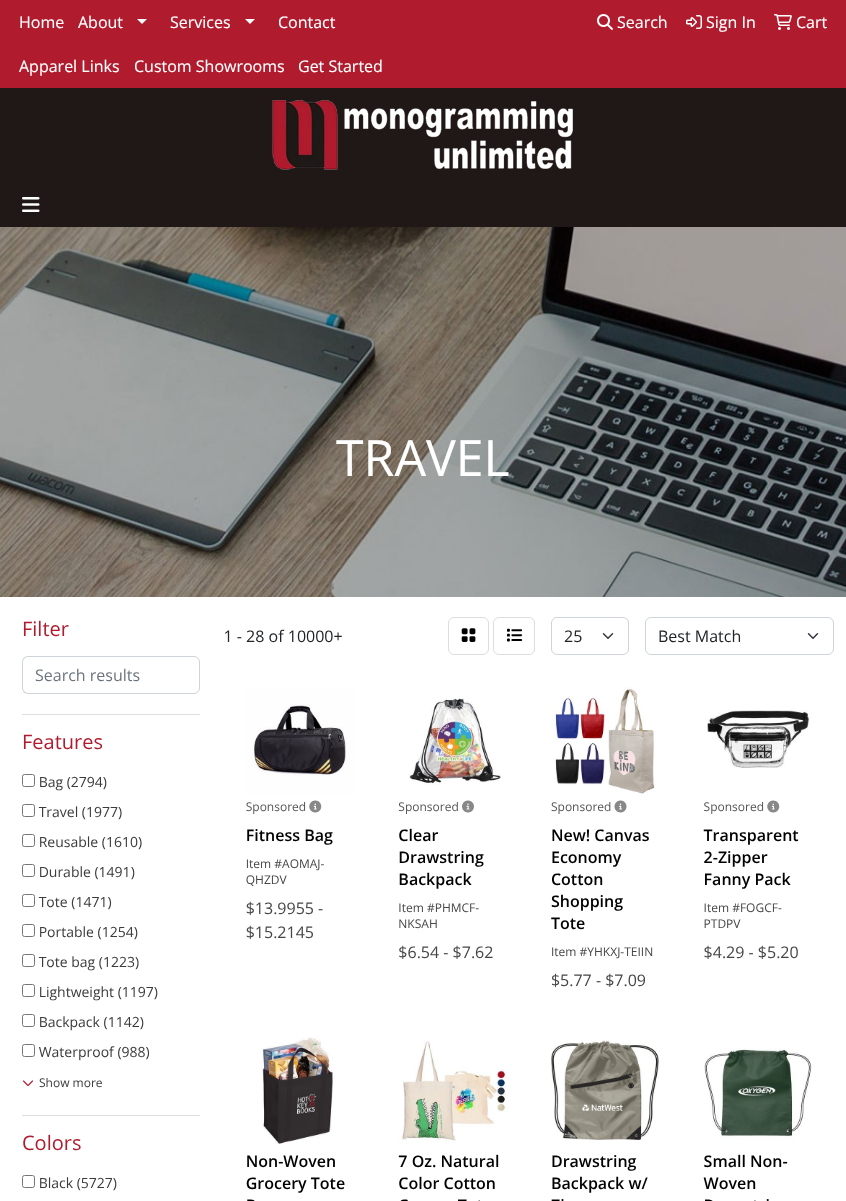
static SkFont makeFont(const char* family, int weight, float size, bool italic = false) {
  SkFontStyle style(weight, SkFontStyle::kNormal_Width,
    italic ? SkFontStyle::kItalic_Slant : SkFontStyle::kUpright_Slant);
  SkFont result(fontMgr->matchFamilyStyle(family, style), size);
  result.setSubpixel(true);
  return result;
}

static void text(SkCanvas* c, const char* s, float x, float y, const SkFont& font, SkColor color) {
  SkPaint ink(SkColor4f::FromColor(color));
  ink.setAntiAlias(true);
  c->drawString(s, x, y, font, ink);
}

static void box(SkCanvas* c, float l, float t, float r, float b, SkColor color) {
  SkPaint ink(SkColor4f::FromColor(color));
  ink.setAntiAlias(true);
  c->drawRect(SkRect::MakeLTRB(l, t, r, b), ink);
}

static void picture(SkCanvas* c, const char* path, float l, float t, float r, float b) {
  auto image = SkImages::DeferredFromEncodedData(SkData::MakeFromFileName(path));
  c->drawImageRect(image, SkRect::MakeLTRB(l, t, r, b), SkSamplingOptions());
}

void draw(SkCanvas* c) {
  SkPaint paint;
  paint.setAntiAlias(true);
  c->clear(0xffffffff);
  box(c, 0, 0, 846, 88, 0xffb01b2e);
  SkFont face1 = makeFont("Open Sans", 400, 16);
  text(c, "Home", 19, 28, face1, 0xffffffff);
  text(c, "About", 78, 28, face1, 0xffffffff);
  paint.setColor(0xffffffff);
  c->drawPath(SkPathBuilder().moveTo(137, 19).lineTo(147, 19).lineTo(142, 24).close().detach(), paint);
  text(c, "Services", 170, 28, face1, 0xffffffff);
  c->drawPath(SkPathBuilder().moveTo(245, 19).lineTo(255, 19).lineTo(250, 24).close().detach(), paint);
  text(c, "Contact", 278, 28, face1, 0xffffffff);
  text(c, "Apparel Links", 19, 72, face1, 0xffffffff);
  text(c, "Custom Showrooms", 134, 72, face1, 0xffffffff);
  text(c, "Get Started", 298, 72, face1, 0xffffffff);
  picture(c, "img_01.png", 597, 14, 613, 30);
  text(c, "Search", 617, 28, face1, 0xffffffff);
  picture(c, "img_02.png", 686, 15, 702, 29);
  text(c, "Sign In", 706, 28, face1, 0xffffffff);
  picture(c, "img_03.png", 774, 14, 792, 30);
  text(c, "Cart", 796, 28, face1, 0xffffffff);
  box(c, 0, 88, 846, 227, 0xff201816);
  picture(c, "img_04.png", 272, 100, 573, 170);
  picture(c, "img_05.png", 22, 197, 40, 212);
  picture(c, "img_06.png", 0, 227, 846, 597);
  SkFont face2 = makeFont("Open Sans", 400, 50);
  text(c, "TRAVEL", 336, 476, face2, 0xffffffff);
  picture(c, "img_07.png", 22, 617, 834, 1201);
}
